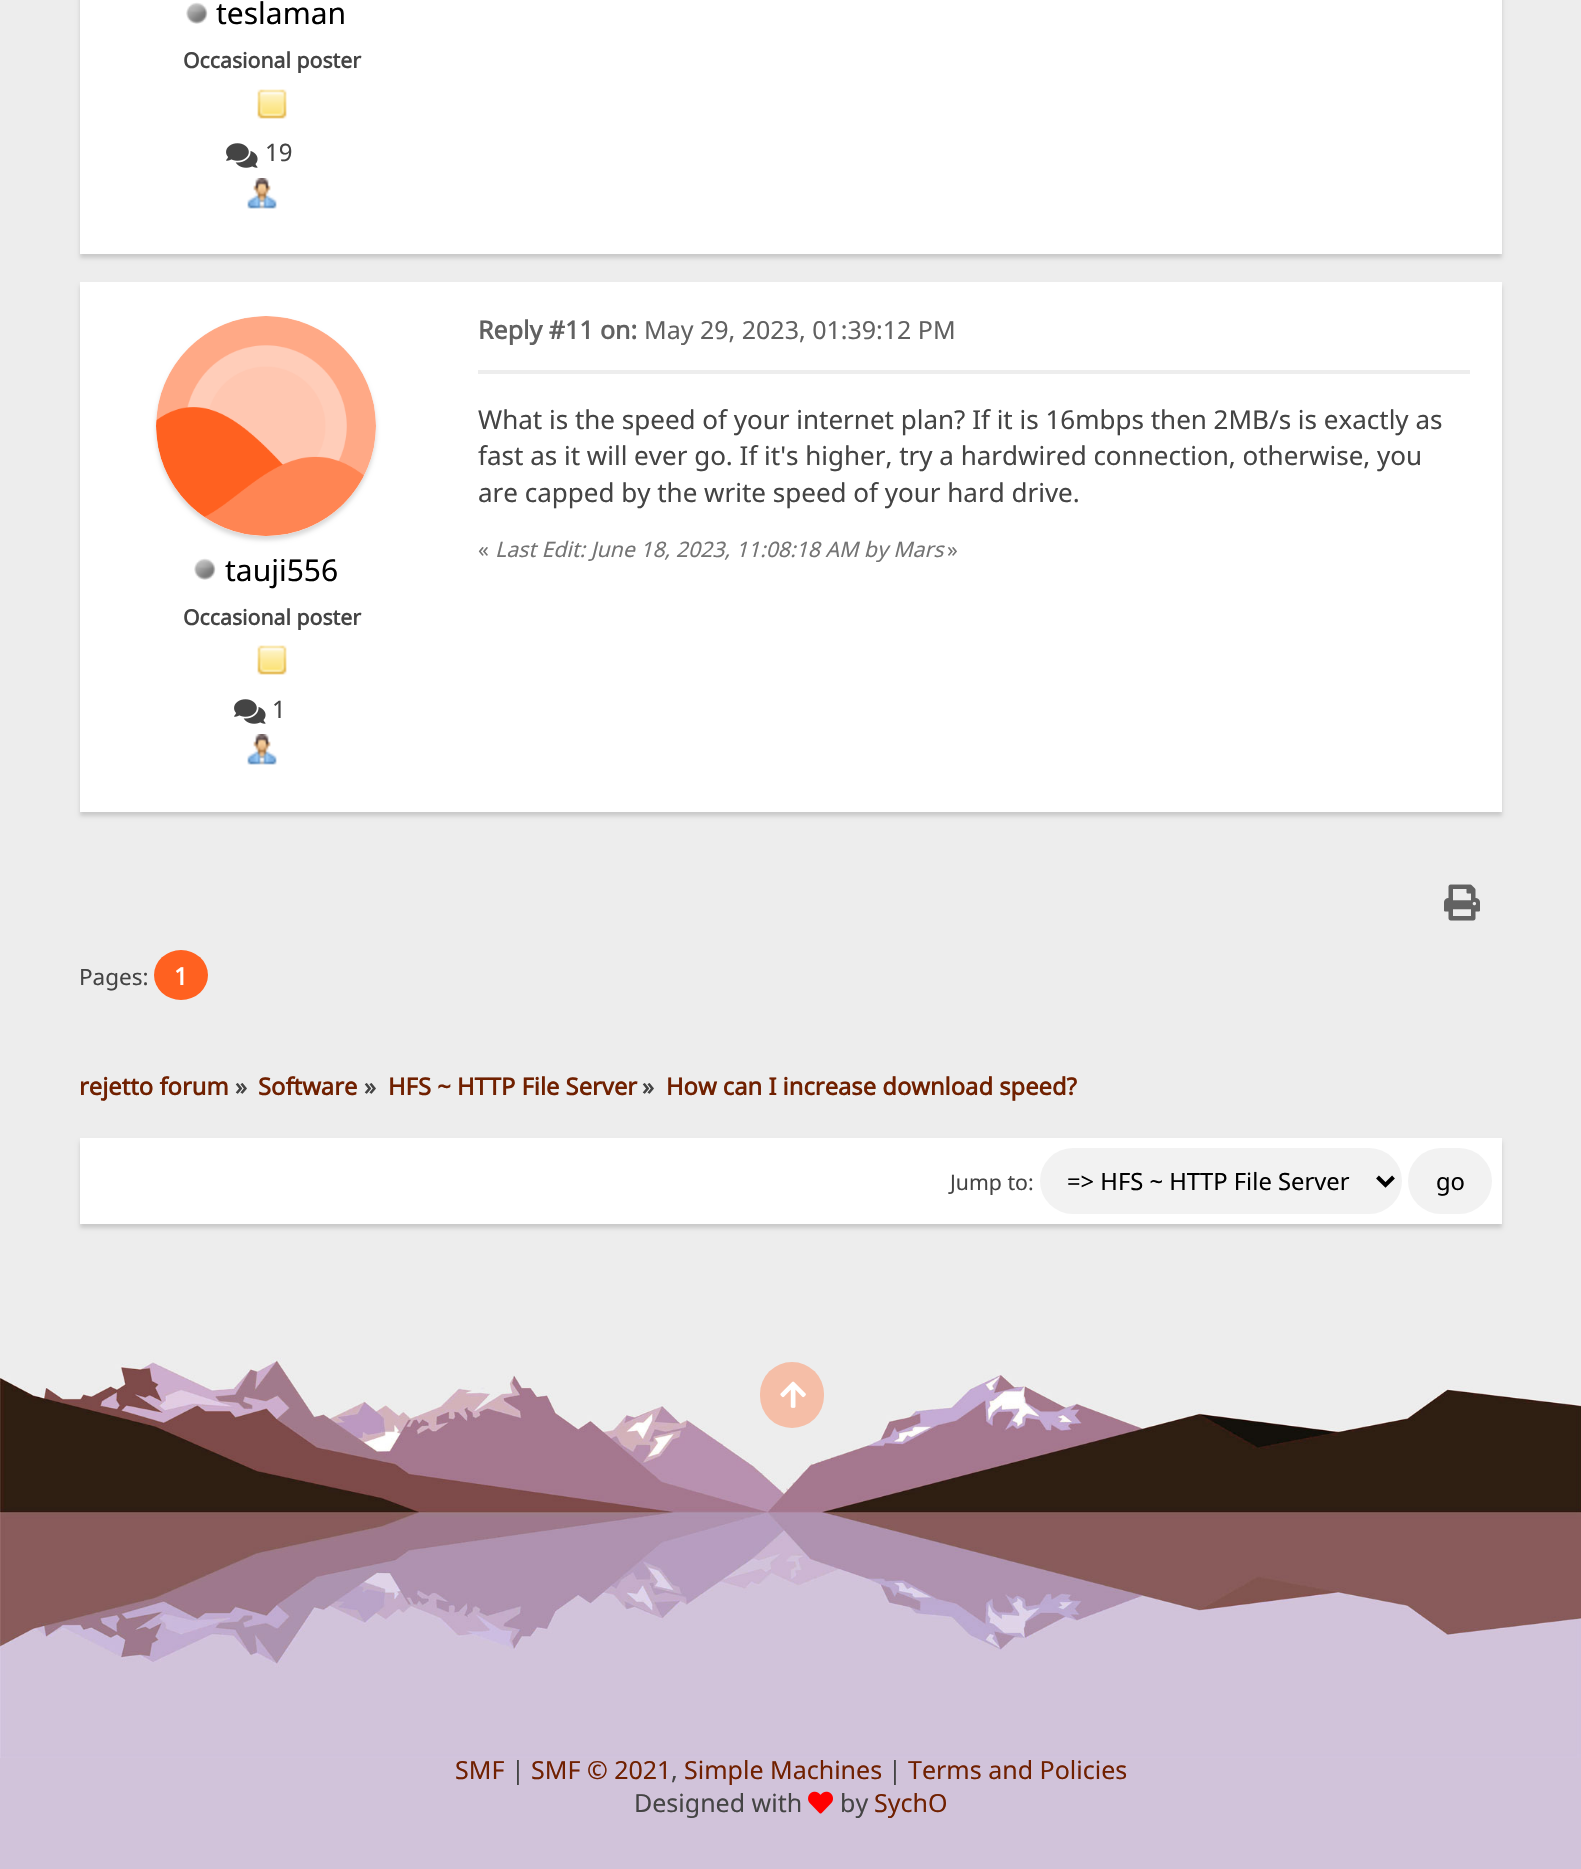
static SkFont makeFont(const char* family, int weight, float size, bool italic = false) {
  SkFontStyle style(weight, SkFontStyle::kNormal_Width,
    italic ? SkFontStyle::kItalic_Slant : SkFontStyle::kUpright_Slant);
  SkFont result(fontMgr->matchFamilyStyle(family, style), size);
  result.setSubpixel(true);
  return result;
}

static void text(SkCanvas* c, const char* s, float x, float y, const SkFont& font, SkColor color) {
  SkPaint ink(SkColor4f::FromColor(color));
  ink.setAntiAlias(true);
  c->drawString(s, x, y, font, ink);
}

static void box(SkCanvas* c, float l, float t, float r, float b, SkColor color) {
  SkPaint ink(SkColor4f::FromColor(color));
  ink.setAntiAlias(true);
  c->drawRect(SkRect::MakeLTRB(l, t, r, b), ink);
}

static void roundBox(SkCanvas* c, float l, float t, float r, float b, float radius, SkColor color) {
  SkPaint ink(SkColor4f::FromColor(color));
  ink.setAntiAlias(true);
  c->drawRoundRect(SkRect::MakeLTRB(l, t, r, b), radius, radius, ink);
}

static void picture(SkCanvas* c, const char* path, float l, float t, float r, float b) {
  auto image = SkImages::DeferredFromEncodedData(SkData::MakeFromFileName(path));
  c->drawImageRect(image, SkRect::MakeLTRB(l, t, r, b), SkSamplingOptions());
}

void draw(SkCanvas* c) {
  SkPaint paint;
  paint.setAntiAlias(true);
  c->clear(0xffededed);
  paint.setColor(0x26000000);
  paint.setMaskFilter(SkMaskFilter::MakeBlur(kNormal_SkBlurStyle, 2));
  c->drawRect(SkRect::MakeLTRB(80, -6, 1502, 258), paint);
  paint.setMaskFilter(nullptr);
  box(c, 80, 0, 1502, 254, 0xffffffff);
  picture(c, "img_01.png", 186, 2, 208, 24);
  SkFont face1 = makeFont("Noto Sans", 400, 30);
  text(c, "teslaman", 216, 24, face1, 0xff000000);
  SkFont face2 = makeFont("Noto Sans", 700, 21.25f);
  text(c, "Occasional poster", 183, 68, face2, 0xff444444);
  picture(c, "img_02.png", 257, 89, 287, 119);
  picture(c, "img_03.png", 226, 143, 258, 168);
  SkFont face3 = makeFont("Noto Sans", 400, 24);
  text(c, "19", 265, 161, face3, 0xff444444);
  picture(c, "img_04.png", 247, 178, 277, 209);
  paint.setMaskFilter(SkMaskFilter::MakeBlur(kNormal_SkBlurStyle, 2));
  c->drawRect(SkRect::MakeLTRB(80, 286, 1502, 816), paint);
  paint.setMaskFilter(nullptr);
  box(c, 80, 282, 1502, 812, 0xffffffff);
  SkFont face4 = makeFont("Noto Sans", 700, 25);
  text(c, "Reply #11 on:", 478, 339, face4, 0xff616161);
  SkFont face5 = makeFont("Noto Sans", 400, 25);
  text(c, "May 29, 2023, 01:39:12 PM", 644, 339, face5, 0xff616161);
  box(c, 478, 370, 1470, 374, 0xffededed);
  SkFont face6 = makeFont("Noto Sans", 400, 26);
  text(c, "What is the speed of your internet plan? If it is 16mbps then 2MB/s is exactly as", 478, 429, face6, 0xff444444);
  text(c, "fast as it will ever go. If it's higher, try a hardwired connection, otherwise, you", 478, 465, face6, 0xff444444);
  text(c, "are capped by the write speed of your hard drive.", 478, 502, face6, 0xff444444);
  SkFont face7 = makeFont("Noto Sans", 400, 21.25f);
  text(c, "«", 478, 557, face7, 0xff747474);
  SkFont face8 = makeFont("Noto Sans", 400, 21.25f, true);
  text(c, "Last Edit: June 18, 2023, 11:08:18 AM by Mars", 495, 557, face8, 0xff747474);
  text(c, "»", 947, 557, face7, 0xff747474);
  paint.setMaskFilter(SkMaskFilter::MakeBlur(kNormal_SkBlurStyle, 2));
  c->drawRoundRect(SkRect::MakeLTRB(156, 320, 376, 540), 110, 110, paint);
  paint.setMaskFilter(nullptr);
  paint.setColor(0xffffffff);
  c->drawCircle(266, 426, 110, paint);
  picture(c, "img_05.png", 156, 316, 376, 536);
  picture(c, "img_01.png", 194, 558, 216, 580);
  text(c, "tauji556", 225, 581, face1, 0xff000000);
  text(c, "Occasional poster", 183, 625, face2, 0xff444444);
  picture(c, "img_02.png", 257, 645, 287, 675);
  picture(c, "img_03.png", 234, 699, 266, 724);
  text(c, "1", 272, 718, face3, 0xff444444);
  picture(c, "img_04.png", 247, 734, 277, 765);
  picture(c, "img_06.png", 1444, 884, 1480, 921);
  SkFont face9 = makeFont("Noto Sans", 400, 22.5f);
  text(c, "Pages:", 79, 985, face9, 0xff444444);
  paint.setColor(0xffff6120);
  c->drawOval(SkRect::MakeLTRB(154, 950, 208, 1000), paint);
  SkFont face10 = makeFont("Noto Sans", 700, 24);
  text(c, "1", 174, 985, face10, 0xffffffff);
  SkFont face11 = makeFont("Noto Sans", 700, 23.75f);
  text(c, "rejetto forum", 79, 1095, face11, 0xff702000);
  text(c, "»", 235, 1095, face11, 0xff444444);
  text(c, "Software", 258, 1095, face11, 0xff702000);
  text(c, "»", 364, 1095, face11, 0xff444444);
  text(c, "HFS ~ HTTP File Server", 388, 1095, face11, 0xff702000);
  text(c, "»", 642, 1095, face11, 0xff444444);
  text(c, "How can I increase download speed?", 666, 1095, face11, 0xff702000);
  paint.setColor(0x26000000);
  paint.setMaskFilter(SkMaskFilter::MakeBlur(kNormal_SkBlurStyle, 2));
  c->drawRect(SkRect::MakeLTRB(80, 1142, 1502, 1228), paint);
  paint.setMaskFilter(nullptr);
  box(c, 80, 1138, 1502, 1224, 0xffffffff);
  text(c, "Jump to:", 950, 1190, face7, 0xff444444);
  roundBox(c, 1040, 1148, 1402, 1214, 33, 0xfff2f2f2);
  paint.setStyle(SkPaint::kStroke_Style);
  paint.setStrokeWidth(4);
  paint.setColor(0xff000000);
  c->drawPath(SkPathBuilder().moveTo(1377.5f, 1177).lineTo(1385.5f, 1185).lineTo(1393.5f, 1177).detach(), paint);
  SkFont face12 = makeFont("Noto Sans", 400, 23.75f);
  text(c, "=> HFS ~ HTTP File Server", 1067, 1190, face12, 0xff000000);
  roundBox(c, 1408, 1148, 1492, 1214, 33, 0xfff2f2f2);
  text(c, "go", 1436, 1190, face12, 0xff000000);
  box(c, 0, 1758, 1581, 1869, 0xffd1c3da);
  picture(c, "img_07.png", 0, 1306, 1581, 1758);
  roundBox(c, 760, 1362, 824, 1428, 32, 0xfff5bea7);
  picture(c, "img_08.png", 780, 1381, 806, 1408);
  text(c, "SMF", 455, 1779, face5, 0xff702000);
  text(c, "|", 511, 1779, face5, 0xff444444);
  text(c, "SMF © 2021", 531, 1779, face5, 0xff702000);
  text(c, ",", 671, 1779, face5, 0xff444444);
  text(c, "Simple Machines", 684, 1779, face5, 0xff702000);
  text(c, "|", 888, 1779, face5, 0xff444444);
  text(c, "Terms and Policies", 908, 1779, face5, 0xff702000);
  text(c, "Designed with", 634, 1812, face5, 0xff444444);
  picture(c, "img_09.png", 808, 1791, 833, 1814);
  text(c, "by", 840, 1812, face5, 0xff444444);
  text(c, "SychO", 874, 1812, face5, 0xff702000);
}
